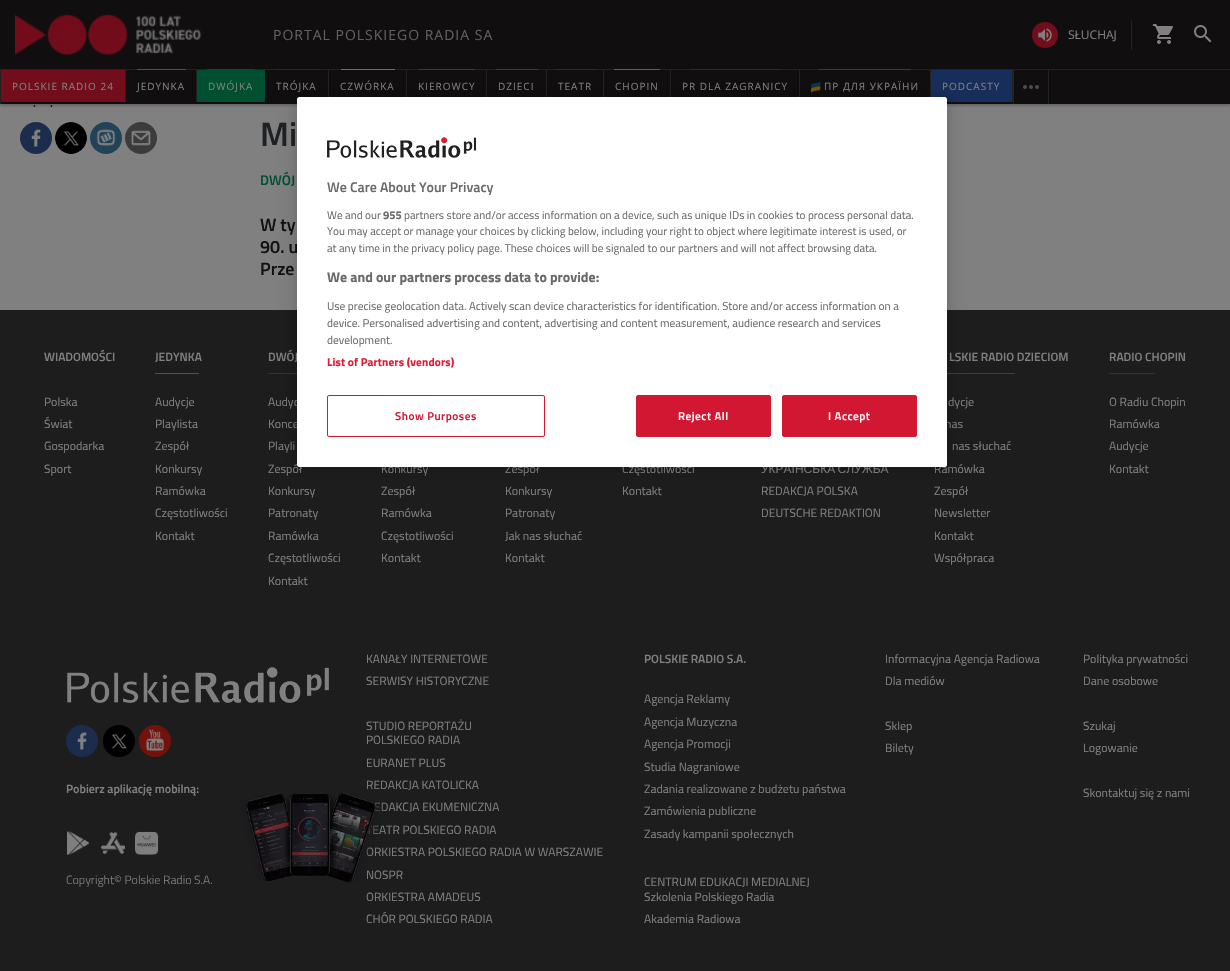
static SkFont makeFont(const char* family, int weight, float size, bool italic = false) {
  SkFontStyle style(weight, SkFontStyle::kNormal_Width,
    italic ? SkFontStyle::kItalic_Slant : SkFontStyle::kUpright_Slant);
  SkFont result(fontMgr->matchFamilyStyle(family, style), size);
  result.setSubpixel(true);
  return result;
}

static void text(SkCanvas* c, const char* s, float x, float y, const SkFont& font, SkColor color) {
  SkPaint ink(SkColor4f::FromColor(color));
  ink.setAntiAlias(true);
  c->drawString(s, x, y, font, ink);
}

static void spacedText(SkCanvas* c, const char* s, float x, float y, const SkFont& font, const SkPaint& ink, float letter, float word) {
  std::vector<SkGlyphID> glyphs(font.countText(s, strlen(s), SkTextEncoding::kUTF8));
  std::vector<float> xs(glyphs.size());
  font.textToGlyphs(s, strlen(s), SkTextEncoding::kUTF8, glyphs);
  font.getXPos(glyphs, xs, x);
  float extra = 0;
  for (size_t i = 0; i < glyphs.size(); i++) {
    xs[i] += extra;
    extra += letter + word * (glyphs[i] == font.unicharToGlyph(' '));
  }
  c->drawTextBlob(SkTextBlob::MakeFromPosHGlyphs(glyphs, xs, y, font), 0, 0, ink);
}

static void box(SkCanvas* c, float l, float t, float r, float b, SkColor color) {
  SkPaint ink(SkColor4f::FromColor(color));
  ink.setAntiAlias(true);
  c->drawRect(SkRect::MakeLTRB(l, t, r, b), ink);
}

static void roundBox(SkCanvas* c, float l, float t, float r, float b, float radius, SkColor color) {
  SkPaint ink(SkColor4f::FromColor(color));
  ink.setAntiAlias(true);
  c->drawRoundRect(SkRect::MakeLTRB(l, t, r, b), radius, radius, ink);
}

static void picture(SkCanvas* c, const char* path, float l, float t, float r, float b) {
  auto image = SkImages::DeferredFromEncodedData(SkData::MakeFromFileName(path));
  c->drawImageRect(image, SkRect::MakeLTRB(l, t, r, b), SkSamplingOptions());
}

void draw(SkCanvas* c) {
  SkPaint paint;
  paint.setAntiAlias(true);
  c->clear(0xff1d1d1d);
  box(c, 0, 104, 1230, 310, 0xff808080);
  paint.setColor(0x33000000);
  paint.setMaskFilter(SkMaskFilter::MakeBlur(kNormal_SkBlurStyle, 1));
  c->drawRect(SkRect::MakeLTRB(0, 2, 1230, 106), paint);
  paint.setMaskFilter(nullptr);
  box(c, 0, 0, 1230, 104, 0xff100e0e);
  box(c, 0, 69, 1230, 70, 0xff222222);
  picture(c, "img_01.png", 15, 14, 202, 55);
  SkFont face1 = makeFont("Open Sans", 400, 14);
  paint.setColor(0xff606060);
  spacedText(c, "PORTAL POLSKIEGO RADIA SA", 273, 40, face1, paint, 1, 0);
  paint.setColor(0xff720d1b);
  c->drawCircle(1045, 35, 13, paint);
  picture(c, "img_02.png", 1038, 28, 1052, 42);
  SkFont face2 = makeFont("Open Sans", 400, 12);
  text(c, "SŁUCHAJ", 1068, 39, face2, 0xff808080);
  box(c, 1131, 20, 1132, 50, 0xff222222);
  picture(c, "img_03.png", 1153, 24, 1173, 44);
  picture(c, "img_04.png", 1194, 25, 1212, 43);
  box(c, 0, 70, 1, 104, 0xff222222);
  box(c, 1, 70, 125, 102, 0xff720d1b);
  box(c, 125, 70, 126, 102, 0xff222222);
  SkFont face3 = makeFont("Open Sans", 400, 10);
  paint.setColor(0xff808080);
  spacedText(c, "POLSKIE RADIO 24", 12, 90, face3, paint, 1, 0);
  box(c, 196, 70, 197, 102, 0xff222222);
  box(c, 137, 69, 186, 70, 0xff7b470f);
  spacedText(c, "JEDYNKA", 137, 90, face3, paint, 1, 0);
  box(c, 197, 70, 265, 102, 0xff004f31);
  box(c, 207, 69, 255, 70, 0xff004f31);
  spacedText(c, "DWÓJKA", 208, 90, face3, paint, 1, 0);
  box(c, 328, 70, 329, 102, 0xff222222);
  box(c, 275, 69, 319, 70, 0xff6c0239);
  spacedText(c, "TRÓJKA", 276, 90, face3, paint, 1, 0);
  box(c, 406, 70, 407, 102, 0xff222222);
  box(c, 341, 69, 395, 70, 0xff807a01);
  spacedText(c, "CZWÓRKA", 340, 90, face3, paint, 1, 0);
  box(c, 486, 70, 487, 102, 0xff222222);
  box(c, 419, 69, 475, 70, 0xff7a2320);
  spacedText(c, "KIEROWCY", 418, 90, face3, paint, 1, 0);
  box(c, 546, 70, 547, 102, 0xff222222);
  box(c, 496, 69, 538, 70, 0xff005374);
  spacedText(c, "DZIECI", 498, 90, face3, paint, 1, 0);
  box(c, 603, 70, 604, 102, 0xff222222);
  box(c, 555, 69, 595, 70, 0xff720d1b);
  spacedText(c, "TEATR", 558, 90, face3, paint, 1, 0);
  box(c, 670, 70, 671, 102, 0xff222222);
  box(c, 614, 69, 660, 70, 0xff5e5e5e);
  spacedText(c, "CHOPIN", 615, 90, face3, paint, 1, 0);
  box(c, 799, 70, 800, 102, 0xff222222);
  box(c, 690, 69, 780, 70, 0xff720d1b);
  spacedText(c, "PR DLA ZAGRANICY", 682, 90, face3, paint, 1, 0);
  box(c, 930, 70, 931, 104, 0xff222222);
  box(c, 819, 69, 911, 70, 0xff7a2320);
  picture(c, "img_05.png", 810, 81, 821, 93);
  spacedText(c, "ПР ДЛЯ УКРАЇНИ", 824, 90, face3, paint, 1, 0);
  box(c, 931, 70, 1012, 102, 0xff182e5a);
  box(c, 1012, 70, 1013, 102, 0xff222222);
  spacedText(c, "PODCASTY", 942, 90, face3, paint, 1, 0);
  box(c, 1048, 70, 1049, 104, 0xff222222);
  box(c, 1013, 70, 1014, 104, 0xff222222);
  picture(c, "img_06.png", 1023, 85, 1039, 89);
  SkFont face4 = makeFont("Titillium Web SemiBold", 600, 12);
  text(c, ".", 33, 107, face4, 0xff111111);
  text(c, ".", 50, 107, face4, 0xff111111);
  paint.setColor(0xff1b2c4d);
  c->drawCircle(36, 138, 16, paint);
  picture(c, "img_07.png", 31, 129, 41, 147);
  picture(c, "img_08.png", 55, 122, 87, 154);
  paint.setColor(0xff224258);
  c->drawCircle(106, 138, 16, paint);
  picture(c, "img_09.png", 96, 129, 116, 146);
  paint.setColor(0xff3b3b3b);
  c->drawCircle(141, 138, 16, paint);
  picture(c, "img_10.png", 131, 130, 151, 146);
  SkFont face5 = makeFont("Titillium Web SemiBold", 600, 34);
  text(c, "Mi", 260, 146, face5, 0xff1e2224);
  SkFont face6 = makeFont("Titillium Web SemiBold", 600, 14);
  text(c, "DWÓJ", 260, 185, face6, 0xff004f31);
  SkFont face7 = makeFont("Titillium Web SemiBold", 600, 18);
  text(c, "W ty", 260, 231, face7, 0xff111111);
  text(c, "90. u", 260, 253, face7, 0xff111111);
  text(c, "Prze", 260, 275, face7, 0xff111111);
  text(c, "WIADOMOŚCI", 44, 361, face4, 0xff808080);
  SkFont face8 = makeFont("Titillium Web", 400, 12);
  text(c, "Polska", 44, 406, face8, 0xff808080);
  text(c, "Świat", 44, 428, face8, 0xff808080);
  text(c, "Gospodarka", 44, 450, face8, 0xff808080);
  text(c, "Sport", 44, 473, face8, 0xff808080);
  text(c, "JEDYNKA", 155, 361, face4, 0xff808080);
  box(c, 155, 373, 199, 374, 0xff7b470f);
  text(c, "Audycje", 155, 406, face8, 0xff808080);
  text(c, "Playlista", 155, 428, face8, 0xff808080);
  text(c, "Zespół", 155, 450, face8, 0xff808080);
  text(c, "Konkursy", 155, 473, face8, 0xff808080);
  text(c, "Ramówka", 155, 495, face8, 0xff808080);
  text(c, "Częstotliwości", 155, 517, face8, 0xff808080);
  text(c, "Kontakt", 155, 540, face8, 0xff808080);
  text(c, "DWÓJ", 268, 361, face4, 0xff808080);
  box(c, 268, 373, 297, 374, 0xff004f31);
  text(c, "Audyc", 268, 406, face8, 0xff808080);
  text(c, "Konce", 268, 428, face8, 0xff808080);
  text(c, "Playli", 268, 450, face8, 0xff808080);
  text(c, "Zespół", 268, 473, face8, 0xff808080);
  text(c, "Konkursy", 268, 495, face8, 0xff808080);
  text(c, "Patronaty", 268, 517, face8, 0xff808080);
  text(c, "Ramówka", 268, 540, face8, 0xff808080);
  text(c, "Częstotliwości", 268, 562, face8, 0xff808080);
  text(c, "Kontakt", 268, 585, face8, 0xff808080);
  text(c, "Konkursy", 381, 473, face8, 0xff808080);
  text(c, "Zespół", 381, 495, face8, 0xff808080);
  text(c, "Ramówka", 381, 517, face8, 0xff808080);
  text(c, "Częstotliwości", 381, 540, face8, 0xff808080);
  text(c, "Kontakt", 381, 562, face8, 0xff808080);
  text(c, "Zespół", 505, 473, face8, 0xff808080);
  text(c, "Konkursy", 505, 495, face8, 0xff808080);
  text(c, "Patronaty", 505, 517, face8, 0xff808080);
  text(c, "Jak nas słuchać", 505, 540, face8, 0xff808080);
  text(c, "Kontakt", 505, 562, face8, 0xff808080);
  text(c, "Częstotliwości", 622, 473, face8, 0xff808080);
  text(c, "Kontakt", 622, 495, face8, 0xff808080);
  text(c, "LSKIE RADIO DZIECIOM", 949, 361, face4, 0xff808080);
  box(c, 947, 373, 1015, 374, 0xff005374);
  text(c, "dycje", 948, 406, face8, 0xff808080);
  text(c, "nas", 945, 428, face8, 0xff808080);
  text(c, "nas słuchać", 952, 450, face8, 0xff808080);
  text(c, "Ramówka", 934, 473, face8, 0xff808080);
  text(c, "Zespół", 934, 495, face8, 0xff808080);
  text(c, "Newsletter", 934, 517, face8, 0xff808080);
  text(c, "Kontakt", 934, 540, face8, 0xff808080);
  text(c, "Współpraca", 934, 562, face8, 0xff808080);
  text(c, "RADIO CHOPIN", 1109, 361, face4, 0xff808080);
  box(c, 1109, 373, 1155, 374, 0xff443109);
  text(c, "O Radiu Chopin", 1109, 406, face8, 0xff808080);
  text(c, "Ramówka", 1109, 428, face8, 0xff808080);
  text(c, "Audycje", 1109, 450, face8, 0xff808080);
  text(c, "Kontakt", 1109, 473, face8, 0xff808080);
  SkFont face9 = makeFont("Liberation Sans", 400, 12);
  paint.setColor(0xff808080);
  spacedText(c, "УКРАЇНСЬКА СЛУЖБА", 761, 473, face9, paint, 0, -1);
  text(c, "REDAKCJA POLSKA", 761, 495, face8, 0xff808080);
  text(c, "DEUTSCHE REDAKTION", 761, 517, face8, 0xff808080);
  picture(c, "img_11.png", 67, 667, 329, 703);
  paint.setColor(0xff1b2c4d);
  c->drawCircle(82, 741, 16, paint);
  picture(c, "img_07.png", 77, 732, 87, 750);
  picture(c, "img_12.png", 103, 725, 135, 757);
  paint.setColor(0xff73110c);
  c->drawCircle(155, 741, 16, paint);
  picture(c, "img_13.png", 145, 729, 165, 751);
  text(c, "Pobierz aplikację mobilną:", 66, 793, face4, 0xff808080);
  picture(c, "img_14.png", 67, 831, 89, 855);
  picture(c, "img_15.png", 101, 832, 125, 854);
  picture(c, "img_16.png", 135, 831, 159, 855);
  text(c, "EDAKCJA EKUMENICZNA", 374, 811, face8, 0xff808080);
  text(c, "TEATR POLSKIEGO RADIA", 366, 834, face8, 0xff808080);
  text(c, "ORKIESTRA POLSKIEGO RADIA W WARSZAWIE", 366, 856, face8, 0xff808080);
  text(c, "NOSPR", 366, 879, face8, 0xff808080);
  picture(c, "img_17.png", 241, 793, 385, 883);
  SkFont face10 = makeFont("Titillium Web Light", 300, 12);
  text(c, "Copyright© Polskie Radio S.A.", 66, 884, face10, 0xff808080);
  text(c, "KANAŁY INTERNETOWE", 366, 663, face8, 0xff808080);
  text(c, "SERWISY HISTORYCZNE", 366, 685, face8, 0xff808080);
  text(c, "STUDIO REPORTAŻU", 366, 730, face8, 0xff808080);
  text(c, "POLSKIEGO RADIA", 366, 744, face8, 0xff808080);
  text(c, "EURANET PLUS", 366, 767, face8, 0xff808080);
  text(c, "REDAKCJA KATOLICKA", 366, 789, face8, 0xff808080);
  text(c, "ORKIESTRA AMADEUS", 366, 901, face8, 0xff808080);
  text(c, "CHÓR POLSKIEGO RADIA", 366, 923, face8, 0xff808080);
  text(c, "POLSKIE RADIO S.A.", 644, 663, face4, 0xff808080);
  text(c, "Agencja Reklamy", 644, 703, face8, 0xff808080);
  text(c, "Agencja Muzyczna", 644, 726, face8, 0xff808080);
  text(c, "Agencja Promocji", 644, 748, face8, 0xff808080);
  text(c, "Studia Nagraniowe", 644, 771, face8, 0xff808080);
  text(c, "Zadania realizowane z budżetu państwa", 644, 793, face8, 0xff808080);
  text(c, "Zamówienia publiczne", 644, 815, face8, 0xff808080);
  text(c, "Zasady kampanii społecznych", 644, 838, face8, 0xff808080);
  text(c, "CENTRUM EDUKACJI MEDIALNEJ", 644, 886, face8, 0xff808080);
  text(c, "Szkolenia Polskiego Radia", 644, 901, face8, 0xff808080);
  text(c, "Akademia Radiowa", 644, 923, face8, 0xff808080);
  text(c, "Informacyjna Agencja Radiowa", 885, 663, face8, 0xff808080);
  text(c, "Dla mediów", 885, 685, face8, 0xff808080);
  text(c, "Sklep", 885, 730, face8, 0xff808080);
  text(c, "Bilety", 885, 752, face8, 0xff808080);
  text(c, "Polityka prywatności", 1083, 663, face8, 0xff808080);
  text(c, "Dane osobowe", 1083, 685, face8, 0xff808080);
  text(c, "Szukaj", 1083, 730, face8, 0xff808080);
  text(c, "Logowanie", 1083, 752, face8, 0xff808080);
  text(c, "Skontaktuj się z nami", 1083, 797, face8, 0xff808080);
  paint.setColor(0x33000000);
  paint.setMaskFilter(SkMaskFilter::MakeBlur(kNormal_SkBlurStyle, 9));
  c->drawRoundRect(SkRect::MakeLTRB(297, 97, 947, 467), 2.5f, 2.5f, paint);
  paint.setMaskFilter(nullptr);
  roundBox(c, 297, 97, 947, 467, 2.5f, 0xffffffff);
  picture(c, "img_18.png", 327, 137, 476, 158);
  text(c, "We Care About Your Privacy", 327, 192, face6, 0xff696969);
  SkFont face11 = makeFont("Titillium Web", 400, 11.2f);
  text(c, "We and our", 327, 219, face11, 0xff696969);
  SkFont face12 = makeFont("Titillium Web", 700, 11.2f);
  text(c, "955", 383, 219, face12, 0xff696969);
  text(c, "partners store and/or access information on a device, such as unique IDs in cookies to process personal data.", 404, 219, face11, 0xff696969);
  text(c, "You may accept or manage your choices by clicking below, including your right to object where legitimate interest is used, or", 327, 235, face11, 0xff696969);
  text(c, "at any time in the privacy policy page. These choices will be signaled to our partners and will not affect browsing data.", 327, 252, face11, 0xff696969);
  SkFont face13 = makeFont("Titillium Web", 700, 14);
  text(c, "We and our partners process data to provide:", 327, 282, face13, 0xff696969);
  SkFont face14 = makeFont("Titillium Web", 400, 11.38f);
  text(c, "Use precise geolocation data. Actively scan device characteristics for identification. Store and/or access information on a", 327, 310, face14, 0xff696969);
  text(c, "device. Personalised advertising and content, advertising and content measurement, audience research and services", 327, 327, face14, 0xff696969);
  text(c, "development.", 327, 344, face14, 0xff696969);
  SkFont face15 = makeFont("Titillium Web", 700, 11.38f);
  paint.setColor(0xffe31936);
  spacedText(c, "List of Partners (vendors)", 327, 366, face15, paint, 0.1f, 0);
  paint.setStyle(SkPaint::kStroke_Style);
  paint.setStrokeWidth(1);
  paint.setColor(0xffd21733);
  c->drawRoundRect(SkRect::MakeLTRB(327.5f, 395.5f, 544.5f, 436.5f), 1.5f, 1.5f, paint);
  SkFont face16 = makeFont("Titillium Web SemiBold", 600, 11.38f);
  paint.setStyle(SkPaint::kFill_Style);
  spacedText(c, "Show Purposes", 395, 420, face16, paint, 0.5f, 0);
  c->drawRoundRect(SkRect::MakeLTRB(636.5f, 395.5f, 770.5f, 436.5f), 1.5f, 1.5f, paint);
  paint.setStyle(SkPaint::kStroke_Style);
  c->drawRoundRect(SkRect::MakeLTRB(636.5f, 395.5f, 770.5f, 436.5f), 1.5f, 1.5f, paint);
  paint.setStyle(SkPaint::kFill_Style);
  paint.setColor(0xffffffff);
  spacedText(c, "Reject All", 678, 420, face16, paint, 0.5f, 0);
  paint.setColor(0xffd21733);
  c->drawRoundRect(SkRect::MakeLTRB(782.5f, 395.5f, 916.5f, 436.5f), 1.5f, 1.5f, paint);
  paint.setStyle(SkPaint::kStroke_Style);
  c->drawRoundRect(SkRect::MakeLTRB(782.5f, 395.5f, 916.5f, 436.5f), 1.5f, 1.5f, paint);
  paint.setStyle(SkPaint::kFill_Style);
  paint.setColor(0xffffffff);
  spacedText(c, "I Accept", 828, 420, face16, paint, 0.5f, 0);
}
